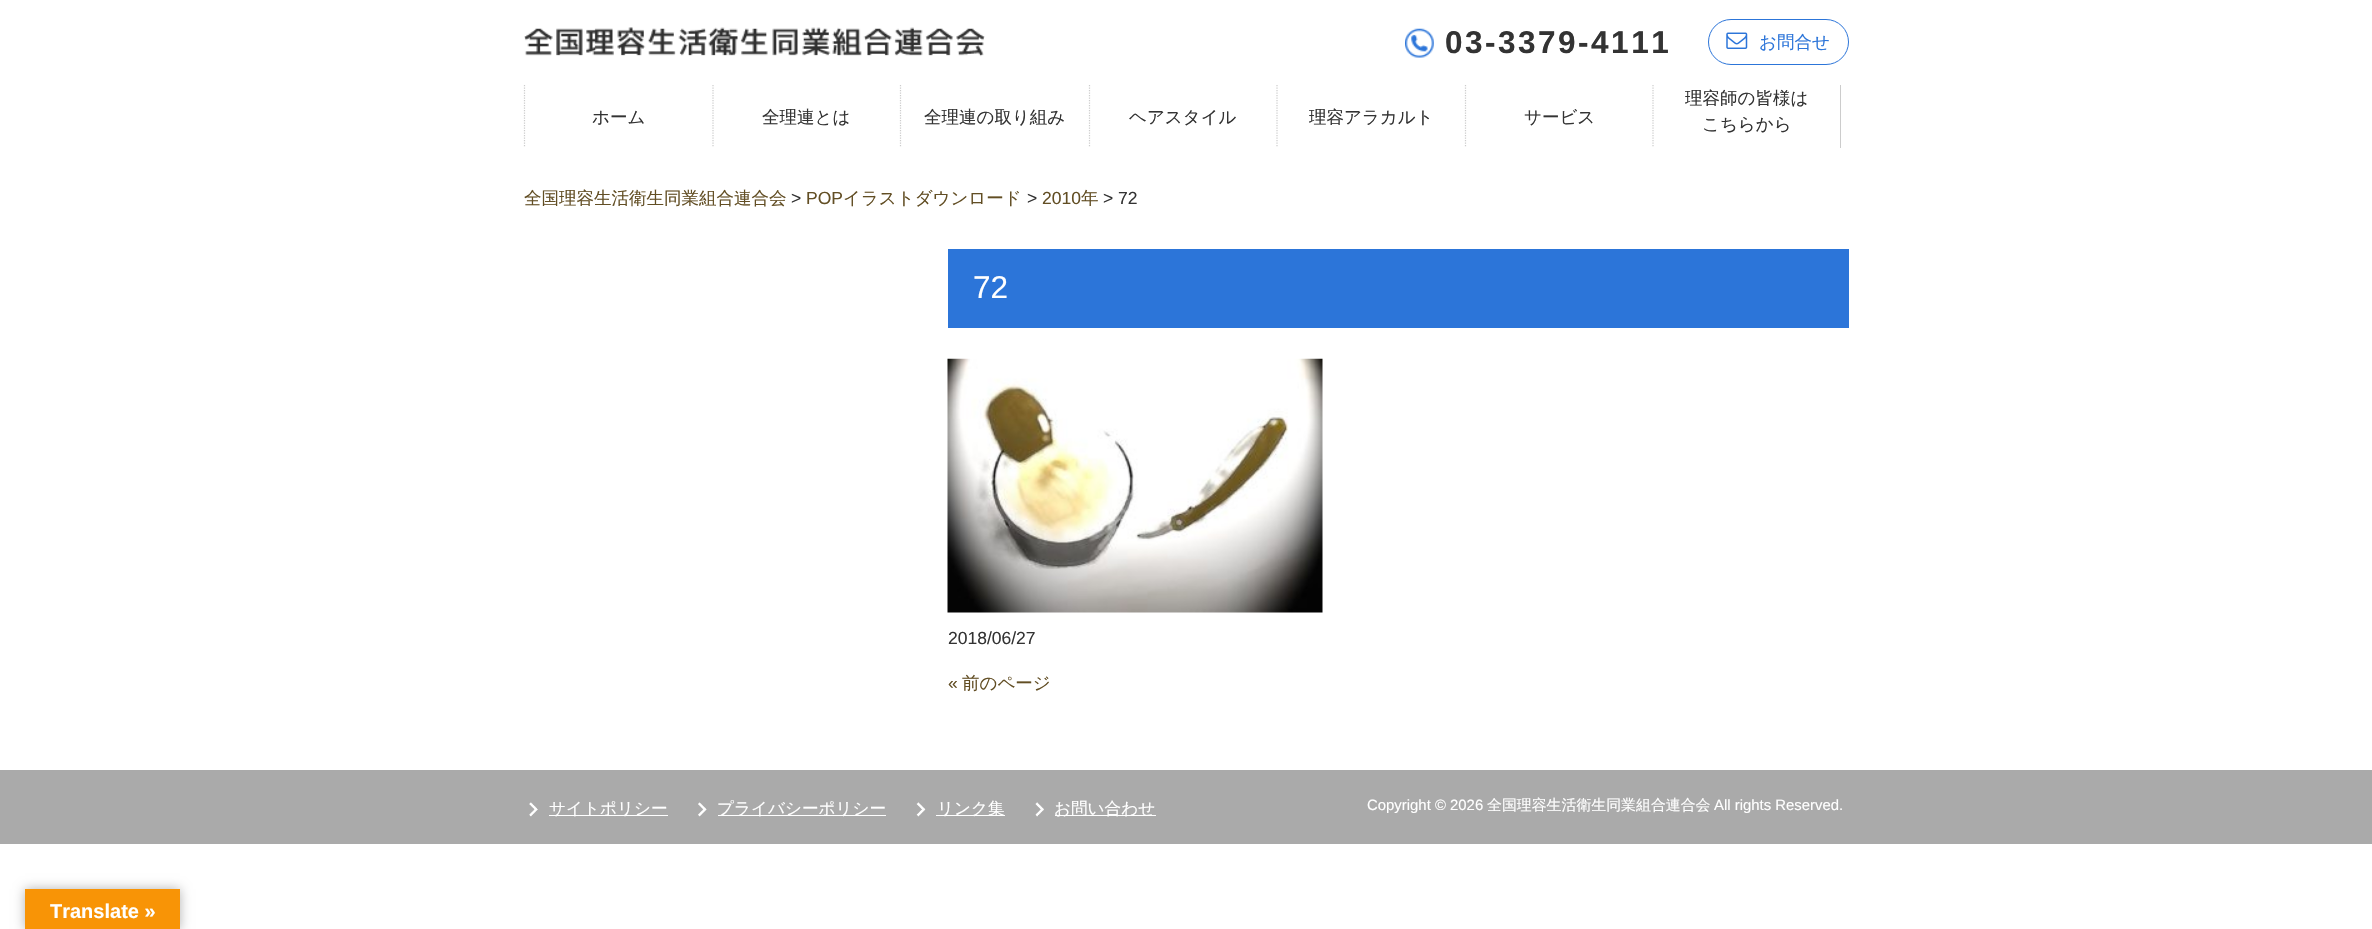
static SkFont makeFont(const char* family, int weight, float size, bool italic = false) {
  SkFontStyle style(weight, SkFontStyle::kNormal_Width,
    italic ? SkFontStyle::kItalic_Slant : SkFontStyle::kUpright_Slant);
  SkFont result(fontMgr->matchFamilyStyle(family, style), size);
  result.setSubpixel(true);
  return result;
}

static void text(SkCanvas* c, const char* s, float x, float y, const SkFont& font, SkColor color) {
  SkPaint ink(SkColor4f::FromColor(color));
  ink.setAntiAlias(true);
  c->drawString(s, x, y, font, ink);
}

static void spacedText(SkCanvas* c, const char* s, float x, float y, const SkFont& font, const SkPaint& ink, float letter, float word) {
  std::vector<SkGlyphID> glyphs(font.countText(s, strlen(s), SkTextEncoding::kUTF8));
  std::vector<float> xs(glyphs.size());
  font.textToGlyphs(s, strlen(s), SkTextEncoding::kUTF8, glyphs);
  font.getXPos(glyphs, xs, x);
  float extra = 0;
  for (size_t i = 0; i < glyphs.size(); i++) {
    xs[i] += extra;
    extra += letter + word * (glyphs[i] == font.unicharToGlyph(' '));
  }
  c->drawTextBlob(SkTextBlob::MakeFromPosHGlyphs(glyphs, xs, y, font), 0, 0, ink);
}

static void box(SkCanvas* c, float l, float t, float r, float b, SkColor color) {
  SkPaint ink(SkColor4f::FromColor(color));
  ink.setAntiAlias(true);
  c->drawRect(SkRect::MakeLTRB(l, t, r, b), ink);
}

static void picture(SkCanvas* c, const char* path, float l, float t, float r, float b) {
  auto image = SkImages::DeferredFromEncodedData(SkData::MakeFromFileName(path));
  c->drawImageRect(image, SkRect::MakeLTRB(l, t, r, b), SkSamplingOptions());
}

void draw(SkCanvas* c) {
  SkPaint paint;
  paint.setAntiAlias(true);
  c->clear(0xffffffff);
  picture(c, "img_01.png", 524, 27, 985, 57);
  picture(c, "img_02.png", 1405, 28, 1434, 58);
  SkFont face1 = makeFont("Liberation Sans", 700, 31.5f);
  paint.setColor(0xff333333);
  spacedText(c, "03-3379-4111", 1445, 53, face1, paint, 2.5f, 0);
  paint.setStyle(SkPaint::kStroke_Style);
  paint.setStrokeWidth(1);
  paint.setColor(0xff2c75d9);
  c->drawRoundRect(SkRect::MakeLTRB(1708.5f, 19.5f, 1848.5f, 64.5f), 22.5f, 22.5f, paint);
  picture(c, "img_03.png", 1726, 32, 1748, 49);
  SkFont face2 = makeFont("WenQuanYi Zen Hei", 500, 17.5f);
  text(c, "お問合せ", 1759, 48, face2, 0xff2c75d9);
  paint.setStrokeWidth(1.2f);
  paint.setColor(0xffcccccc);
  paint.setPathEffect(SkDashPathEffect::Make({{1.25f, 1.25f}}, 0));
  c->drawPath(SkPathBuilder().moveTo(524.5f, 85).lineTo(524.5f, 147.5f).detach(), paint);
  paint.setPathEffect(nullptr);
  text(c, "ホーム", 592, 123, face2, 0xff333333);
  paint.setPathEffect(SkDashPathEffect::Make({{1.25f, 1.25f}}, 0));
  c->drawPath(SkPathBuilder().moveTo(713, 85).lineTo(713, 147.5f).detach(), paint);
  paint.setPathEffect(nullptr);
  text(c, "全理連とは", 762, 123, face2, 0xff333333);
  paint.setPathEffect(SkDashPathEffect::Make({{1.25f, 1.25f}}, 0));
  c->drawPath(SkPathBuilder().moveTo(900.5f, 85).lineTo(900.5f, 147.5f).detach(), paint);
  paint.setPathEffect(nullptr);
  text(c, "全理連の取り組み", 924, 123, face2, 0xff333333);
  paint.setPathEffect(SkDashPathEffect::Make({{1.25f, 1.25f}}, 0));
  c->drawPath(SkPathBuilder().moveTo(1089.5f, 85).lineTo(1089.5f, 147.5f).detach(), paint);
  paint.setPathEffect(nullptr);
  text(c, "ヘアスタイル", 1129, 123, face2, 0xff333333);
  paint.setPathEffect(SkDashPathEffect::Make({{1.25f, 1.25f}}, 0));
  c->drawPath(SkPathBuilder().moveTo(1277, 85).lineTo(1277, 147.5f).detach(), paint);
  paint.setPathEffect(nullptr);
  text(c, "理容アラカルト", 1309, 123, face2, 0xff333333);
  paint.setPathEffect(SkDashPathEffect::Make({{1.25f, 1.25f}}, 0));
  c->drawPath(SkPathBuilder().moveTo(1465.5f, 85).lineTo(1465.5f, 147.5f).detach(), paint);
  paint.setPathEffect(nullptr);
  text(c, "サービス", 1524, 123, face2, 0xff333333);
  box(c, 1840, 85, 1841, 148, 0xffcccccc);
  paint.setPathEffect(SkDashPathEffect::Make({{1.25f, 1.25f}}, 0));
  c->drawPath(SkPathBuilder().moveTo(1653, 85).lineTo(1653, 147.5f).detach(), paint);
  paint.setPathEffect(nullptr);
  text(c, "理容師の皆様は", 1685, 104, face2, 0xff333333);
  text(c, "こちらから", 1702, 130, face2, 0xff333333);
  text(c, "全国理容生活衛生同業組合連合会", 524, 204, face2, 0xff624e24);
  SkFont face3 = makeFont("Liberation Sans", 400, 17.5f);
  text(c, ">", 791, 204, face3, 0xff333333);
  text(c, "POP", 806, 204, face3, 0xff624e24);
  text(c, "イラストダウンロード", 843, 204, face2, 0xff624e24);
  text(c, ">", 1027, 204, face3, 0xff333333);
  text(c, "2010", 1042, 204, face3, 0xff624e24);
  text(c, "年", 1081, 204, face2, 0xff624e24);
  text(c, "> 72", 1103, 204, face3, 0xff333333);
  box(c, 948, 249, 1849, 328, 0xff2c75d9);
  SkFont face4 = makeFont("Liberation Sans", 400, 31.5f);
  text(c, "72", 973, 298, face4, 0xffffffff);
  picture(c, "img_04.png", 947, 358, 1323, 613);
  text(c, "2018/06/27", 948, 644, face3, 0xff333333);
  text(c, "«", 948, 689, face3, 0xff624e24);
  text(c, "前のページ", 962, 689, face2, 0xff624e24);
  box(c, 0, 770, 2372, 844, 0xffaaaaaa);
  picture(c, "img_05.png", 529, 802, 538, 817);
  box(c, 549, 815, 668, 816, 0xffffffff);
  SkFont face5 = makeFont("WenQuanYi Zen Hei", 500, 16.6f);
  text(c, "サイトポリシー", 549, 814, face5, 0xffffffff);
  picture(c, "img_06.png", 698, 802, 707, 817);
  box(c, 718, 815, 886, 816, 0xffffffff);
  text(c, "プライバシーポリシー", 717, 814, face5, 0xffffffff);
  picture(c, "img_07.png", 916, 802, 926, 817);
  box(c, 936, 815, 1005, 816, 0xffffffff);
  text(c, "リンク集", 937, 814, face5, 0xffffffff);
  picture(c, "img_08.png", 1035, 802, 1044, 817);
  box(c, 1055, 815, 1156, 816, 0xffffffff);
  text(c, "お問い合わせ", 1054, 814, face5, 0xffffffff);
  SkFont face6 = makeFont("Liberation Sans", 400, 14.9f);
  text(c, "Copyright © 2026", 1367, 810, face6, 0xffffffff);
  SkFont face7 = makeFont("WenQuanYi Zen Hei", 500, 14.9f);
  text(c, "全国理容生活衛生同業組合連合会", 1487, 810, face7, 0xffffffff);
  text(c, "All rights Reserved.", 1714, 810, face6, 0xffffffff);
  paint.setStyle(SkPaint::kFill_Style);
  paint.setColor(0x4d000000);
  paint.setMaskFilter(SkMaskFilter::MakeBlur(kNormal_SkBlurStyle, 5.5f));
  c->drawRect(SkRect::MakeLTRB(25, 889, 180, 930), paint);
  paint.setMaskFilter(nullptr);
  box(c, 25, 889, 180, 929, 0xfff89406);
  SkFont face8 = makeFont("Liberation Sans", 700, 20);
  text(c, "Translate »", 50, 918, face8, 0xffffffff);
}
